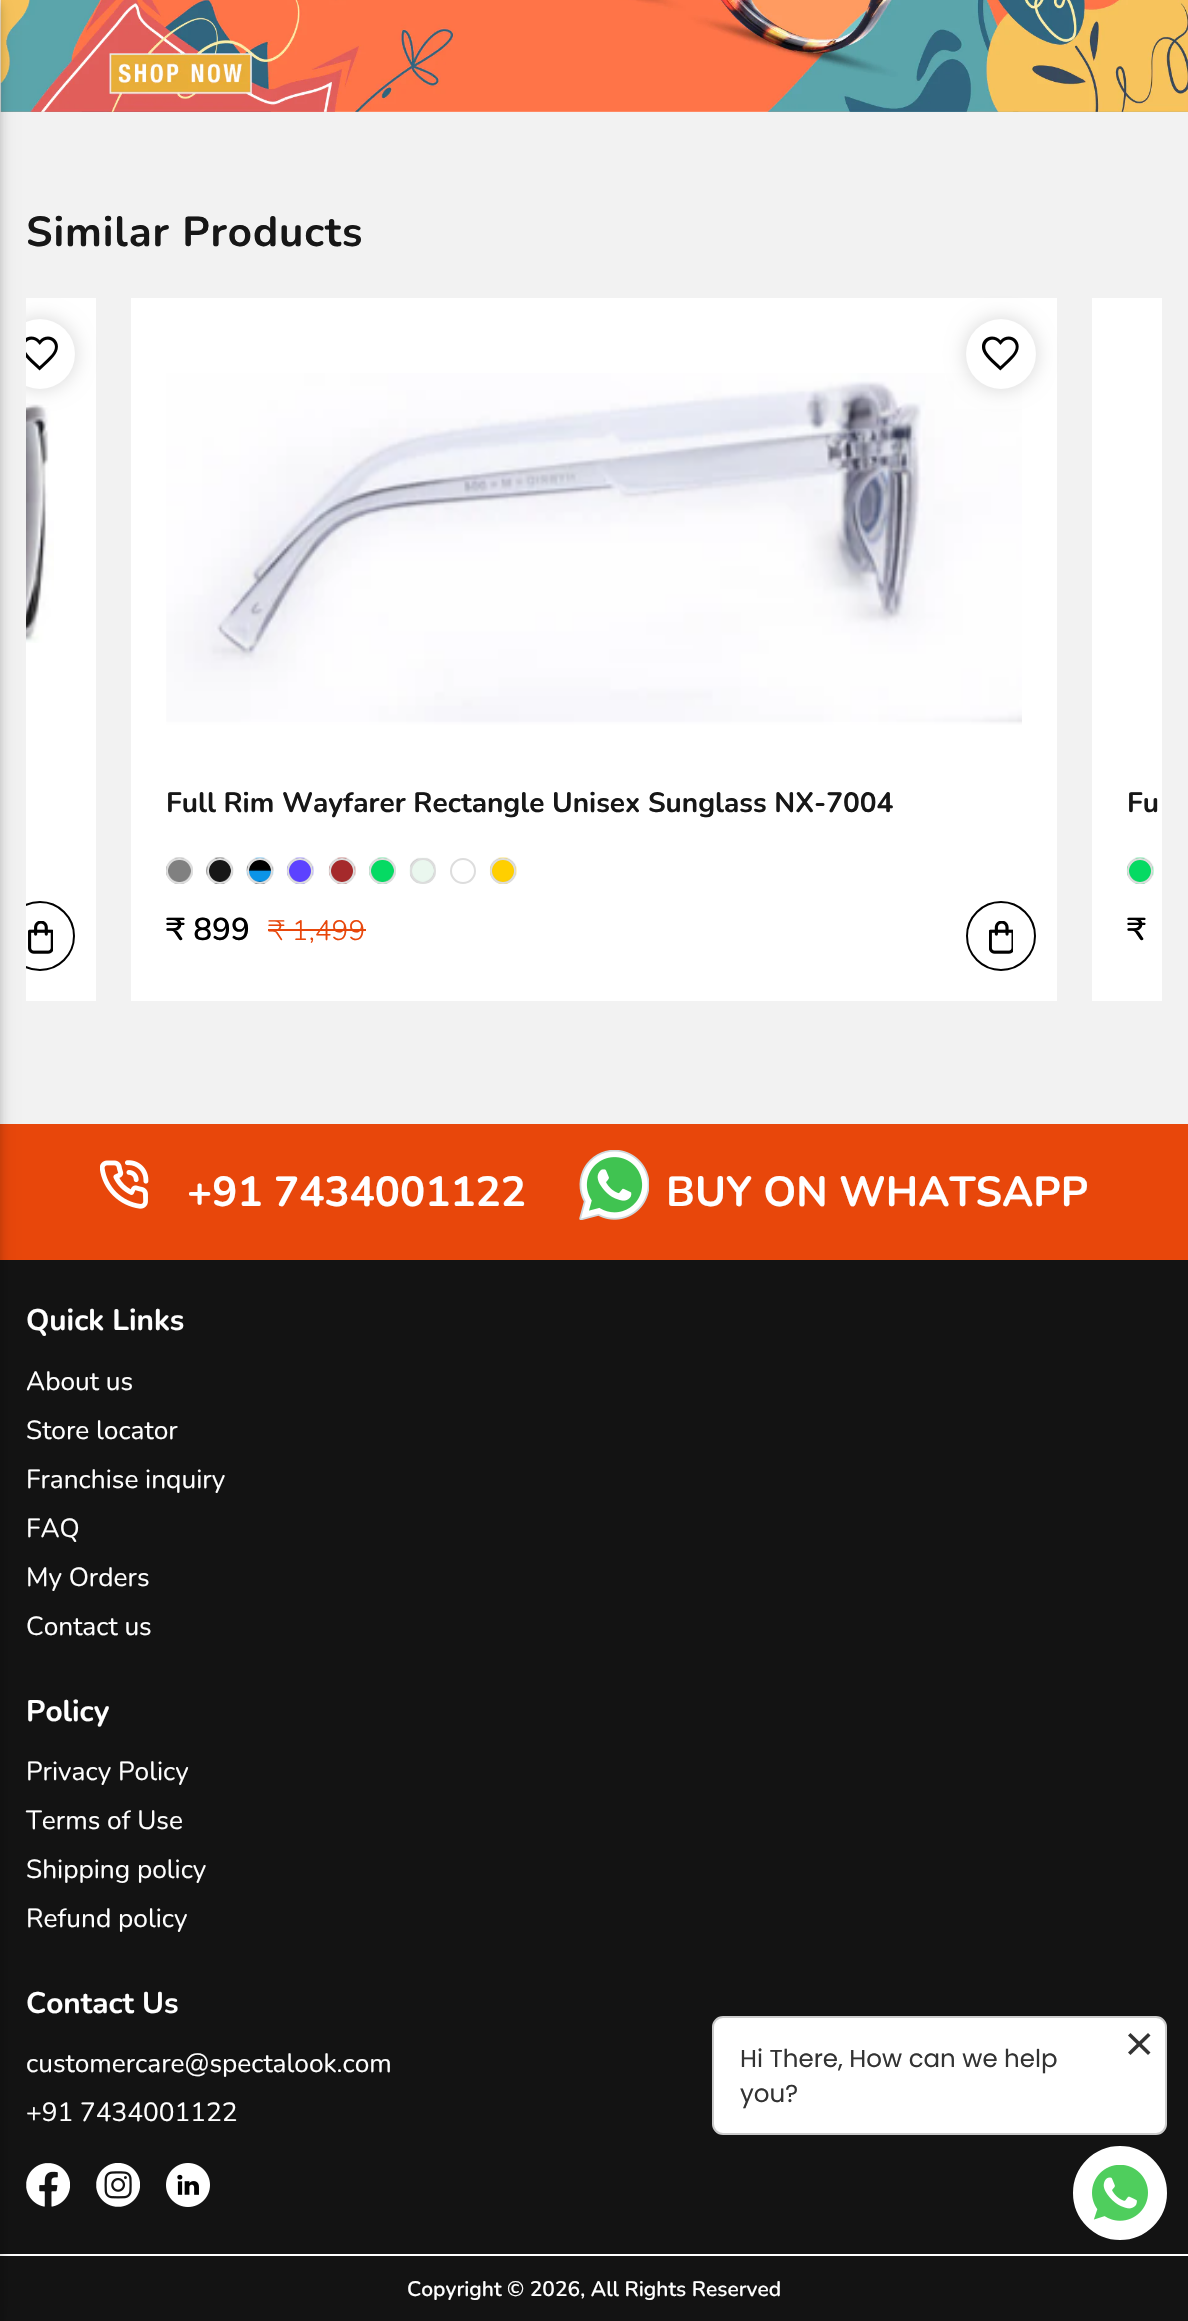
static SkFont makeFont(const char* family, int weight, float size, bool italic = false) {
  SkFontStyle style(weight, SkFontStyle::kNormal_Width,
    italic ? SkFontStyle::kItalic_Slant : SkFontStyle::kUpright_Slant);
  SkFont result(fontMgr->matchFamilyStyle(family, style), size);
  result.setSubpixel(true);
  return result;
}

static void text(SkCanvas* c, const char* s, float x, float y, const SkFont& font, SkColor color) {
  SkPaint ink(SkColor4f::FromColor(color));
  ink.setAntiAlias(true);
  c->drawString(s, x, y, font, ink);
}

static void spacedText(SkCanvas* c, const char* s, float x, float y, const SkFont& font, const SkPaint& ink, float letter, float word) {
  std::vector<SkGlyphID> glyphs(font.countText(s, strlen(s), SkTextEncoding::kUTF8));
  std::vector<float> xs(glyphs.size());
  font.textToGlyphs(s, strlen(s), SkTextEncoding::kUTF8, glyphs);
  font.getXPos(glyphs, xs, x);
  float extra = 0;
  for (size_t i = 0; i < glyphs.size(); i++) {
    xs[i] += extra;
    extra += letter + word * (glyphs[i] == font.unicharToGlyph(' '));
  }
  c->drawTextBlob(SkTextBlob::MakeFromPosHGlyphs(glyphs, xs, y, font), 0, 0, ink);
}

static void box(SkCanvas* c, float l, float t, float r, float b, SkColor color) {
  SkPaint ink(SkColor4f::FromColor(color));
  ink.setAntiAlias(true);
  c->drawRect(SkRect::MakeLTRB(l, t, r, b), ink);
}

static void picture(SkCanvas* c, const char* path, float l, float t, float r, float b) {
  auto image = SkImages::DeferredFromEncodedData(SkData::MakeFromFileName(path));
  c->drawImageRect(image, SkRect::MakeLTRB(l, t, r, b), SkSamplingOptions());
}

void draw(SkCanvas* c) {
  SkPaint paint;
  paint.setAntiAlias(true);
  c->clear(0xffffffff);
  picture(c, "img_01.png", 0, 0, 1188, 112);
  box(c, 0, 112, 1188, 1124, 0xfff2f2f2);
  box(c, 26, 298, 96, 1001, 0xffffffff);
  picture(c, "img_03.png", 26, 403, 54, 643);
  c->save();
  c->clipRect(SkRect::MakeLTRB(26, 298, 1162, 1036));
  paint.setColor(0x29000000);
  paint.setMaskFilter(SkMaskFilter::MakeBlur(kNormal_SkBlurStyle, 10));
  c->drawRoundRect(SkRect::MakeLTRB(5, 319, 75, 389), 35, 35, paint);
  paint.setMaskFilter(nullptr);
  c->restore();
  c->save();
  c->clipRect(SkRect::MakeLTRB(26, 298, 1162, 1036));
  paint.setColor(0xffffffff);
  c->drawCircle(40, 354, 35, paint);
  c->restore();
  picture(c, "img_02.png", 26, 336, 58, 371);
  c->save();
  c->clipRect(SkRect::MakeLTRB(26, 298, 1162, 1036));
  paint.setStyle(SkPaint::kStroke_Style);
  paint.setStrokeWidth(2);
  paint.setColor(0xff000000);
  c->drawCircle(40, 936, 34, paint);
  c->restore();
  box(c, 0, 1260, 1188, 2321, 0xff131313);
  box(c, 0, 1124, 1188, 1260, 0xffe8470b);
  picture(c, "img_19.png", 26, 2163, 70, 2207);
  box(c, 0, 2254, 1188, 2256, 0xffffffff);
  paint.setStyle(SkPaint::kFill_Style);
  paint.setColor(0x1f000000);
  paint.setMaskFilter(SkMaskFilter::MakeBlur(kNormal_SkBlurStyle, 9));
  c->drawRect(SkRect::MakeLTRB(-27, 4, 0, 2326), paint);
  paint.setMaskFilter(nullptr);
  paint.setColor(0x29000000);
  paint.setMaskFilter(SkMaskFilter::MakeBlur(kNormal_SkBlurStyle, 4.5f));
  c->drawRect(SkRect::MakeLTRB(-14, 4, 0, 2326), paint);
  paint.setMaskFilter(nullptr);
  SkFont face1 = makeFont("Nunito", 700, 42);
  paint.setColor(0xff171717);
  spacedText(c, "Similar Products", 26, 246, face1, paint, 0.9f, 0);
  picture(c, "img_04.png", 28, 921, 53, 954);
  box(c, 131, 298, 1057, 1001, 0xffffffff);
  picture(c, "img_06.png", 166, 373, 1022, 725);
  paint.setColor(0x29000000);
  paint.setMaskFilter(SkMaskFilter::MakeBlur(kNormal_SkBlurStyle, 10));
  c->drawRoundRect(SkRect::MakeLTRB(966, 319, 1036, 389), 35, 35, paint);
  paint.setMaskFilter(nullptr);
  paint.setColor(0xffffffff);
  c->drawCircle(1001, 354, 35, paint);
  picture(c, "img_05.png", 982, 336, 1019, 371);
  SkFont face2 = makeFont("Nunito", 700, 28);
  text(c, "Full Rim Wayfarer Rectangle Unisex Sunglass NX-7004", 166, 812, face2, 0xff171717);
  picture(c, "img_07.png", 166, 857, 193, 884);
  paint.setStyle(SkPaint::kStroke_Style);
  paint.setColor(0xffdddddd);
  c->drawRoundRect(SkRect::MakeLTRB(167, 859, 192, 883), 12, 12, paint);
  picture(c, "img_08.png", 206, 857, 234, 884);
  c->drawCircle(220, 871, 12, paint);
  picture(c, "img_09.png", 246, 857, 274, 884);
  c->drawCircle(260, 871, 12, paint);
  picture(c, "img_10.png", 286, 857, 314, 884);
  c->drawCircle(300, 871, 12, paint);
  picture(c, "img_11.png", 328, 857, 356, 884);
  c->drawCircle(342, 871, 12, paint);
  picture(c, "img_12.png", 369, 857, 396, 884);
  c->drawRoundRect(SkRect::MakeLTRB(370, 859, 395, 883), 12, 12, paint);
  picture(c, "img_13.png", 409, 857, 436, 884);
  c->drawCircle(423, 871, 12, paint);
  c->drawCircle(463, 871, 12, paint);
  picture(c, "img_14.png", 489, 857, 517, 884);
  c->drawCircle(503, 871, 12, paint);
  SkFont face3 = makeFont("Nunito", 600, 31.5f);
  text(c, "₹ 899", 166, 940, face3, 0xff000000);
  SkFont face4 = makeFont("Nunito", 300, 28);
  text(c, "₹ 1,499", 268, 940, face4, 0xffe8470b);
  box(c, 268, 929, 366, 931, 0xffe8470b);
  paint.setColor(0xff000000);
  c->drawCircle(1001, 936, 34, paint);
  picture(c, "img_15.png", 989, 921, 1013, 954);
  box(c, 1092, 298, 1162, 1001, 0xffffffff);
  text(c, "Fu", 1127, 812, face2, 0xff171717);
  picture(c, "img_16.png", 1126, 857, 1154, 884);
  paint.setColor(0xffdddddd);
  c->drawCircle(1140, 871, 12, paint);
  text(c, "₹", 1127, 940, face3, 0xff000000);
  picture(c, "img_17.png", 100, 1160, 149, 1209);
  text(c, "+91 7434001122", 187, 1206, face1, 0xffffffff);
  picture(c, "img_18.png", 579, 1150, 649, 1220);
  text(c, "BUY ON WHATSAPP", 666, 1206, face1, 0xffffffff);
  SkFont face5 = makeFont("Nunito", 700, 29.75f);
  text(c, "Quick Links", 26, 1330, face5, 0xffffffff);
  SkFont face6 = makeFont("Nunito", 400, 26.25f);
  text(c, "About us", 26, 1390, face6, 0xffffffff);
  text(c, "Store locator", 26, 1439, face6, 0xffffffff);
  text(c, "Franchise inquiry", 26, 1488, face6, 0xffffffff);
  text(c, "FAQ", 26, 1537, face6, 0xffffffff);
  text(c, "My Orders", 26, 1586, face6, 0xffffffff);
  text(c, "Contact us", 26, 1635, face6, 0xffffffff);
  text(c, "Policy", 26, 1721, face5, 0xffffffff);
  text(c, "Privacy Policy", 26, 1780, face6, 0xffffffff);
  text(c, "Terms of Use", 26, 1829, face6, 0xffffffff);
  text(c, "Shipping policy", 26, 1878, face6, 0xffffffff);
  text(c, "Refund policy", 26, 1927, face6, 0xffffffff);
  text(c, "Contact Us", 26, 2013, face5, 0xffffffff);
  text(c, "customercare@spectalook.com", 26, 2072, face6, 0xffffffff);
  text(c, "+91 7434001122", 26, 2121, face6, 0xffffffff);
  picture(c, "img_20.png", 96, 2163, 140, 2207);
  picture(c, "img_21.png", 166, 2163, 210, 2207);
  SkFont face7 = makeFont("Nunito", 600, 21);
  text(c, "Copyright © 2026, All Rights Reserved", 407, 2296, face7, 0xffffffff);
  paint.setStyle(SkPaint::kFill_Style);
  paint.setColor(0xffffffff);
  c->drawRoundRect(SkRect::MakeLTRB(713, 2017, 1166, 2134), 10, 10, paint);
  paint.setStyle(SkPaint::kStroke_Style);
  paint.setColor(0xffcccccc);
  c->drawRoundRect(SkRect::MakeLTRB(713, 2017, 1166, 2134), 10, 10, paint);
  paint.setStyle(SkPaint::kFill_Style);
  paint.setColor(0xff333333);
  c->drawPath(SkPathBuilder().moveTo(1130.5f, 2033).lineTo(1150.5f, 2052.5f).lineTo(1148, 2055).lineTo(1128, 2035.5f).close().detach(), paint);
  c->drawPath(SkPathBuilder().moveTo(1148, 2033).lineTo(1150.5f, 2035.5f).lineTo(1130.5f, 2055).lineTo(1128, 2052.5f).close().detach(), paint);
  SkFont face8 = makeFont("Poppins", 400, 24.5f);
  text(c, "Hi There, How can we help", 740, 2067, face8, 0xff333333);
  text(c, "you?", 740, 2102, face8, 0xff333333);
  paint.setColor(0xffffffff);
  c->drawCircle(1120, 2193, 46, paint);
  paint.setStyle(SkPaint::kStroke_Style);
  c->drawCircle(1120, 2193, 46, paint);
  picture(c, "img_22.png", 1092, 2165, 1148, 2221);
}
